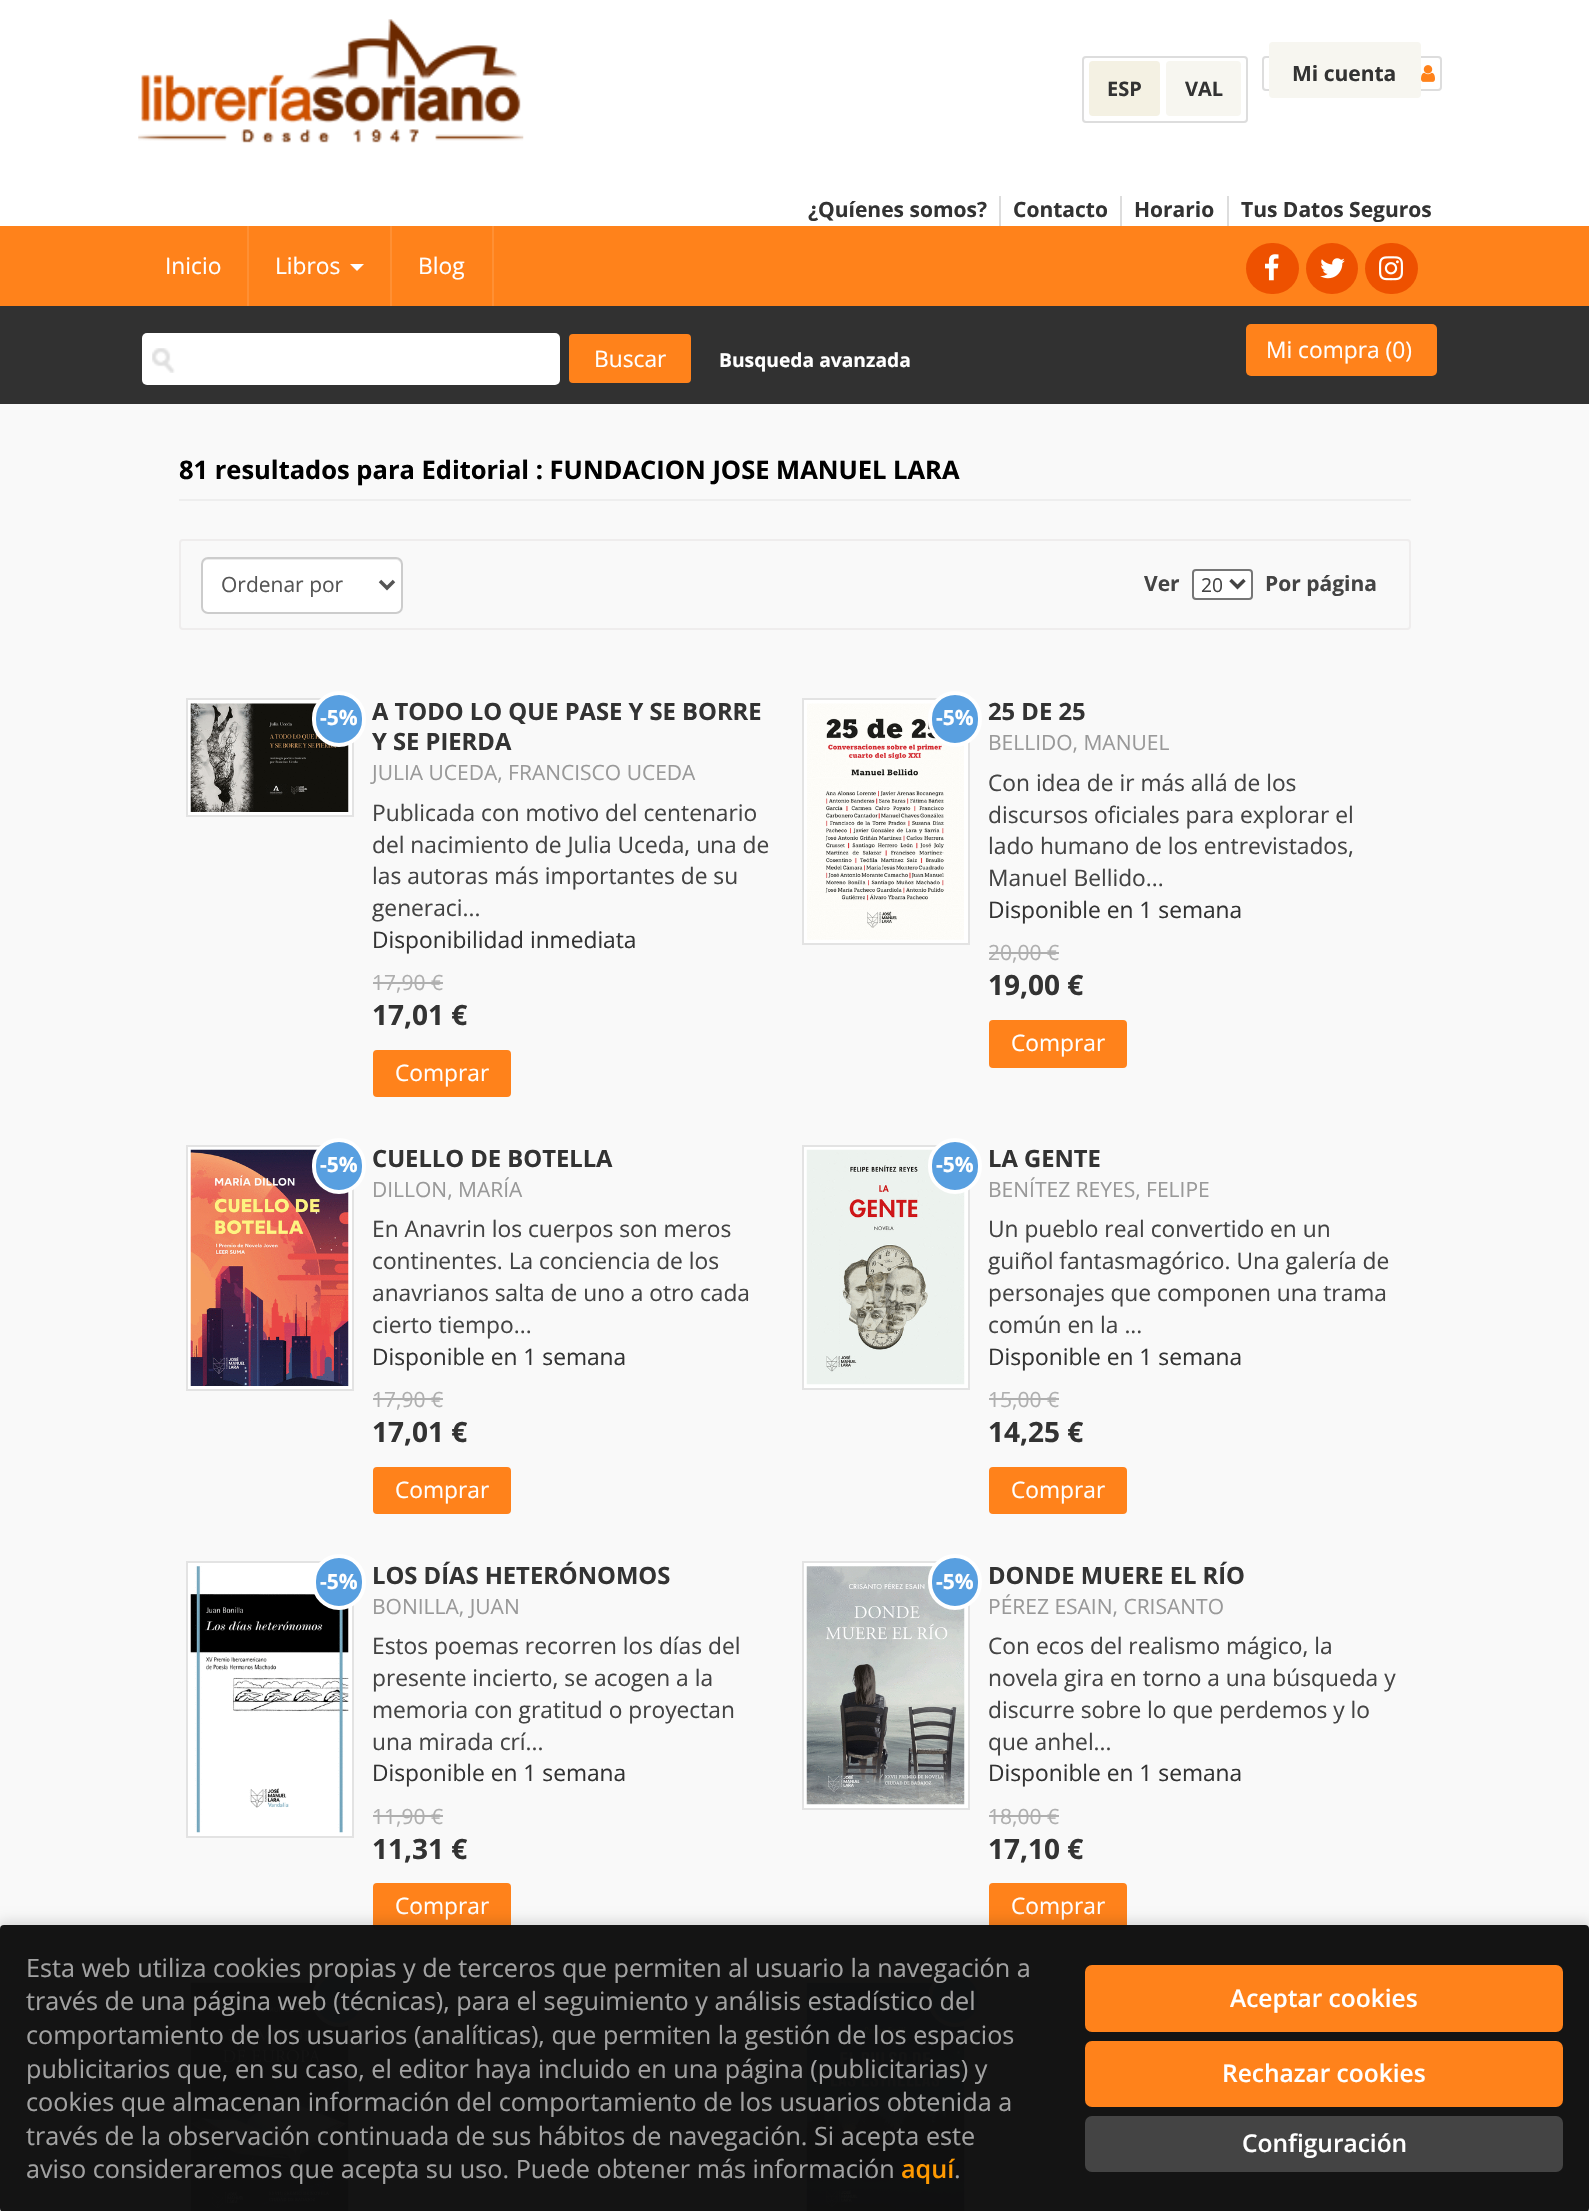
static SkFont makeFont(const char* family, int weight, float size, bool italic = false) {
  SkFontStyle style(weight, SkFontStyle::kNormal_Width,
    italic ? SkFontStyle::kItalic_Slant : SkFontStyle::kUpright_Slant);
  SkFont result(fontMgr->matchFamilyStyle(family, style), size);
  result.setSubpixel(true);
  return result;
}

static void text(SkCanvas* c, const char* s, float x, float y, const SkFont& font, SkColor color) {
  SkPaint ink(SkColor4f::FromColor(color));
  ink.setAntiAlias(true);
  c->drawString(s, x, y, font, ink);
}

static void box(SkCanvas* c, float l, float t, float r, float b, SkColor color) {
  SkPaint ink(SkColor4f::FromColor(color));
  ink.setAntiAlias(true);
  c->drawRect(SkRect::MakeLTRB(l, t, r, b), ink);
}

static void roundBox(SkCanvas* c, float l, float t, float r, float b, float radius, SkColor color) {
  SkPaint ink(SkColor4f::FromColor(color));
  ink.setAntiAlias(true);
  c->drawRoundRect(SkRect::MakeLTRB(l, t, r, b), radius, radius, ink);
}

static void picture(SkCanvas* c, const char* path, float l, float t, float r, float b) {
  auto image = SkImages::DeferredFromEncodedData(SkData::MakeFromFileName(path));
  c->drawImageRect(image, SkRect::MakeLTRB(l, t, r, b), SkSamplingOptions());
}

void draw(SkCanvas* c) {
  SkPaint paint;
  paint.setAntiAlias(true);
  c->clear(0xfff9f9f9);
  box(c, 0, 0, 1589, 226, 0xffffffff);
  picture(c, "img_01.png", 138, 19, 524, 143);
  paint.setStyle(SkPaint::kStroke_Style);
  paint.setStrokeWidth(2);
  paint.setColor(0xffdddddd);
  c->drawRoundRect(SkRect::MakeLTRB(1263, 57, 1441, 90), 3, 3, paint);
  roundBox(c, 1269, 42, 1421, 98, 4, 0xfff7f6f0);
  SkFont face1 = makeFont("Open Sans", 700, 21);
  text(c, "Mi cuenta", 1292, 81, face1, 0xff333333);
  picture(c, "img_02.png", 1421, 65, 1435, 82);
  c->drawRoundRect(SkRect::MakeLTRB(1083, 57, 1247, 122), 3, 3, paint);
  roundBox(c, 1089, 61, 1160, 116, 4, 0xfff4f1e3);
  SkFont face2 = makeFont("Open Sans", 700, 20);
  text(c, "ESP", 1107, 96, face2, 0xff333333);
  roundBox(c, 1166, 61, 1241, 116, 4, 0xfff7f6f0);
  text(c, "VAL", 1185, 96, face2, 0xff333333);
  box(c, 999, 196, 1001, 226, 0xffdddddd);
  text(c, "¿Quíenes somos?", 808, 217, face1, 0xff333333);
  box(c, 1120, 196, 1122, 226, 0xffdddddd);
  text(c, "Contacto", 1013, 217, face1, 0xff333333);
  box(c, 1227, 196, 1229, 226, 0xffdddddd);
  text(c, "Horario", 1134, 217, face1, 0xff333333);
  text(c, "Tus Datos Seguros", 1241, 217, face1, 0xff333333);
  box(c, 0, 226, 1589, 306, 0xffff821b);
  box(c, 247, 226, 249, 306, 0xffff9034);
  SkFont face3 = makeFont("Open Sans", 400, 22.75f);
  text(c, "Inicio", 165, 274, face3, 0xffffffff);
  box(c, 390, 226, 392, 306, 0xffff9034);
  text(c, "Libros", 275, 274, face3, 0xffffffff);
  paint.setStyle(SkPaint::kFill_Style);
  paint.setColor(0xffffffff);
  c->drawPath(SkPathBuilder().moveTo(350, 264).lineTo(364, 264).lineTo(357, 271).close().detach(), paint);
  box(c, 492, 226, 494, 306, 0xffff9034);
  text(c, "Blog", 418, 274, face3, 0xffffffff);
  roundBox(c, 1246, 243, 1299, 294, 25.5f, 0xffee5100);
  picture(c, "img_03.png", 1265, 254, 1279, 281);
  roundBox(c, 1306, 243, 1358, 294, 25.5f, 0xffee5100);
  picture(c, "img_04.png", 1320, 258, 1345, 279);
  roundBox(c, 1365, 243, 1418, 294, 25.5f, 0xffee5100);
  picture(c, "img_05.png", 1379, 256, 1403, 281);
  box(c, 0, 306, 1589, 404, 0xff313131);
  roundBox(c, 142, 333, 560, 385, 5, 0xffffffff);
  picture(c, "img_06.png", 152, 348, 175, 373);
  paint.setColor(0xffff821b);
  c->drawRoundRect(SkRect::MakeLTRB(570, 335, 690, 382), 3, 3, paint);
  paint.setStyle(SkPaint::kStroke_Style);
  c->drawRoundRect(SkRect::MakeLTRB(570, 335, 690, 382), 3, 3, paint);
  text(c, "Buscar", 594, 367, face3, 0xffffffff);
  SkFont face4 = makeFont("Open Sans", 700, 19.25f);
  text(c, "Busqueda avanzada", 719, 367, face4, 0xffffffff);
  roundBox(c, 1246, 324, 1437, 376, 5, 0xffff821b);
  text(c, "Mi compra (0)", 1266, 358, face3, 0xffffffff);
  box(c, 179, 499, 1411, 501, 0xffeeeeee);
  SkFont face5 = makeFont("Open Sans", 700, 25.5f);
  text(c, "81 resultados para Editorial : FUNDACION JOSE MANUEL LARA", 179, 479, face5, 0xff000000);
  paint.setColor(0xffefeded);
  c->drawRoundRect(SkRect::MakeLTRB(180, 540, 1410, 629), 3, 3, paint);
  roundBox(c, 201, 557, 403, 614, 7, 0xffffffff);
  paint.setStyle(SkPaint::kFill_Style);
  paint.setColor(0xffececec);
  c->drawPath(SkPathBuilder().moveTo(208, 560).lineTo(396, 560).cubicTo(398, 560, 401, 562, 401, 565).lineTo(401, 563).cubicTo(401, 560, 399, 558, 396, 558).lineTo(208, 558).cubicTo(205, 558, 203, 560, 203, 563).lineTo(203, 565).cubicTo(203, 562, 205, 560, 208, 560).close().detach(), paint);
  paint.setStyle(SkPaint::kStroke_Style);
  paint.setColor(0xffcccccc);
  c->drawRoundRect(SkRect::MakeLTRB(202, 558, 402, 613), 6, 6, paint);
  paint.setStrokeWidth(3.5f);
  paint.setColor(0xff555555);
  c->drawPath(SkPathBuilder().moveTo(380, 581).lineTo(387, 588).lineTo(394, 581).detach(), paint);
  SkFont face6 = makeFont("Open Sans", 400, 21);
  text(c, "Ordenar por", 221, 592, face6, 0xff555555);
  text(c, "Ver", 1144, 591, face1, 0xff444444);
  paint.setStyle(SkPaint::kFill_Style);
  paint.setColor(0xffffffff);
  c->drawRoundRect(SkRect::MakeLTRB(1193, 570, 1252, 599), 3, 3, paint);
  paint.setStyle(SkPaint::kStroke_Style);
  paint.setStrokeWidth(2);
  paint.setColor(0xff767676);
  c->drawRoundRect(SkRect::MakeLTRB(1193, 570, 1252, 599), 3, 3, paint);
  paint.setStrokeWidth(3.5f);
  paint.setColor(0xff444444);
  c->drawPath(SkPathBuilder().moveTo(1230.5f, 580).lineTo(1237.5f, 587).lineTo(1244.5f, 580).detach(), paint);
  SkFont face7 = makeFont("Open Sans", 400, 19.25f);
  text(c, "20", 1201, 592, face7, 0xff444444);
  text(c, "Por página", 1265, 591, face1, 0xff444444);
  paint.setStyle(SkPaint::kFill_Style);
  paint.setColor(0xffffffff);
  c->drawRect(SkRect::MakeLTRB(187, 699, 353, 816), paint);
  paint.setStyle(SkPaint::kStroke_Style);
  paint.setStrokeWidth(2);
  paint.setColor(0xffe3e3e3);
  c->drawRect(SkRect::MakeLTRB(187, 699, 353, 816), paint);
  picture(c, "img_07.png", 190, 703, 349, 812);
  paint.setStyle(SkPaint::kFill_Style);
  paint.setColor(0xff589fe0);
  c->drawRoundRect(SkRect::MakeLTRB(314, 693, 364, 745), 25, 25, paint);
  paint.setStyle(SkPaint::kStroke_Style);
  paint.setStrokeWidth(4);
  paint.setColor(0xffffffff);
  c->drawRoundRect(SkRect::MakeLTRB(314, 693, 364, 745), 25, 25, paint);
  text(c, "-5%", 320, 725, face1, 0xffffffff);
  SkFont face8 = makeFont("Open Sans", 700, 23.75f);
  text(c, "A TODO LO QUE PASE Y SE BORRE", 372, 720, face8, 0xff333333);
  text(c, "Y SE PIERDA", 372, 750, face8, 0xff333333);
  text(c, "JULIA UCEDA, FRANCISCO UCEDA", 372, 780, face6, 0xff999999);
  text(c, "Publicada con motivo del centenario", 372, 821, face3, 0xff444444);
  text(c, "del nacimiento de Julia Uceda, una de", 372, 853, face3, 0xff444444);
  text(c, "las autoras más importantes de su", 372, 884, face3, 0xff444444);
  text(c, "generaci...", 372, 916, face3, 0xff444444);
  text(c, "Disponibilidad inmediata", 372, 948, face3, 0xff333333);
  text(c, "17,90 €", 372, 990, face6, 0xffafafaf);
  box(c, 373, 982, 443, 984, 0xffafafaf);
  SkFont face9 = makeFont("Open Sans", 700, 28);
  text(c, "17,01 €", 372, 1025, face9, 0xff333333);
  paint.setStyle(SkPaint::kFill_Style);
  paint.setColor(0xffff821b);
  c->drawRoundRect(SkRect::MakeLTRB(374, 1051, 510, 1096), 3, 3, paint);
  paint.setStyle(SkPaint::kStroke_Style);
  paint.setStrokeWidth(2);
  c->drawRoundRect(SkRect::MakeLTRB(374, 1051, 510, 1096), 3, 3, paint);
  text(c, "Comprar", 395, 1081, face3, 0xffffffff);
  paint.setStyle(SkPaint::kFill_Style);
  paint.setColor(0xffffffff);
  c->drawRect(SkRect::MakeLTRB(803, 699, 969, 944), paint);
  paint.setStyle(SkPaint::kStroke_Style);
  paint.setColor(0xffe3e3e3);
  c->drawRect(SkRect::MakeLTRB(803, 699, 969, 944), paint);
  picture(c, "img_08.png", 807, 703, 964, 940);
  paint.setStyle(SkPaint::kFill_Style);
  paint.setColor(0xff589fe0);
  c->drawRoundRect(SkRect::MakeLTRB(930, 693, 980, 745), 25, 25, paint);
  paint.setStyle(SkPaint::kStroke_Style);
  paint.setStrokeWidth(4);
  paint.setColor(0xffffffff);
  c->drawRoundRect(SkRect::MakeLTRB(930, 693, 980, 745), 25, 25, paint);
  text(c, "-5%", 936, 725, face1, 0xffffffff);
  text(c, "25 DE 25", 988, 720, face8, 0xff333333);
  text(c, "BELLIDO, MANUEL", 988, 750, face6, 0xff999999);
  text(c, "Con idea de ir más allá de los", 988, 791, face3, 0xff444444);
  text(c, "discursos oficiales para explorar el", 988, 823, face3, 0xff444444);
  text(c, "lado humano de los entrevistados,", 988, 854, face3, 0xff444444);
  text(c, "Manuel Bellido...", 988, 886, face3, 0xff444444);
  text(c, "Disponible en 1 semana", 988, 918, face3, 0xff333333);
  text(c, "20,00 €", 988, 960, face6, 0xffafafaf);
  box(c, 989, 952, 1059, 954, 0xffafafaf);
  text(c, "19,00 €", 988, 995, face9, 0xff333333);
  paint.setStyle(SkPaint::kFill_Style);
  paint.setColor(0xffff821b);
  c->drawRoundRect(SkRect::MakeLTRB(990, 1021, 1126, 1067), 3, 3, paint);
  paint.setStyle(SkPaint::kStroke_Style);
  paint.setStrokeWidth(2);
  c->drawRoundRect(SkRect::MakeLTRB(990, 1021, 1126, 1067), 3, 3, paint);
  text(c, "Comprar", 1011, 1051, face3, 0xffffffff);
  paint.setStyle(SkPaint::kFill_Style);
  paint.setColor(0xffffffff);
  c->drawRect(SkRect::MakeLTRB(187, 1146, 353, 1390), paint);
  paint.setStyle(SkPaint::kStroke_Style);
  paint.setColor(0xffe3e3e3);
  c->drawRect(SkRect::MakeLTRB(187, 1146, 353, 1390), paint);
  picture(c, "img_09.png", 190, 1149, 349, 1386);
  paint.setStyle(SkPaint::kFill_Style);
  paint.setColor(0xff589fe0);
  c->drawRoundRect(SkRect::MakeLTRB(314, 1140, 364, 1192), 25, 25, paint);
  paint.setStyle(SkPaint::kStroke_Style);
  paint.setStrokeWidth(4);
  paint.setColor(0xffffffff);
  c->drawRoundRect(SkRect::MakeLTRB(314, 1140, 364, 1192), 25, 25, paint);
  text(c, "-5%", 320, 1172, face1, 0xffffffff);
  text(c, "CUELLO DE BOTELLA", 372, 1167, face8, 0xff333333);
  text(c, "DILLON, MARÍA", 372, 1197, face6, 0xff999999);
  text(c, "En Anavrin los cuerpos son meros", 372, 1237, face3, 0xff444444);
  text(c, "continentes. La conciencia de los", 372, 1269, face3, 0xff444444);
  text(c, "anavrianos salta de uno a otro cada", 372, 1301, face3, 0xff444444);
  text(c, "cierto tiempo...", 372, 1333, face3, 0xff444444);
  text(c, "Disponible en 1 semana", 372, 1365, face3, 0xff333333);
  text(c, "17,90 €", 372, 1407, face6, 0xffafafaf);
  box(c, 373, 1398, 443, 1400, 0xffafafaf);
  text(c, "17,01 €", 372, 1442, face9, 0xff333333);
  paint.setStyle(SkPaint::kFill_Style);
  paint.setColor(0xffff821b);
  c->drawRoundRect(SkRect::MakeLTRB(374, 1468, 510, 1513), 3, 3, paint);
  paint.setStyle(SkPaint::kStroke_Style);
  paint.setStrokeWidth(2);
  c->drawRoundRect(SkRect::MakeLTRB(374, 1468, 510, 1513), 3, 3, paint);
  text(c, "Comprar", 395, 1498, face3, 0xffffffff);
  paint.setStyle(SkPaint::kFill_Style);
  paint.setColor(0xffffffff);
  c->drawRect(SkRect::MakeLTRB(803, 1146, 969, 1389), paint);
  paint.setStyle(SkPaint::kStroke_Style);
  paint.setColor(0xffe3e3e3);
  c->drawRect(SkRect::MakeLTRB(803, 1146, 969, 1389), paint);
  picture(c, "img_10.png", 806, 1149, 965, 1385);
  paint.setStyle(SkPaint::kFill_Style);
  paint.setColor(0xff589fe0);
  c->drawRoundRect(SkRect::MakeLTRB(930, 1140, 980, 1192), 25, 25, paint);
  paint.setStyle(SkPaint::kStroke_Style);
  paint.setStrokeWidth(4);
  paint.setColor(0xffffffff);
  c->drawRoundRect(SkRect::MakeLTRB(930, 1140, 980, 1192), 25, 25, paint);
  text(c, "-5%", 936, 1172, face1, 0xffffffff);
  text(c, "LA GENTE", 988, 1167, face8, 0xff333333);
  text(c, "BENÍTEZ REYES, FELIPE", 988, 1197, face6, 0xff999999);
  text(c, "Un pueblo real convertido en un", 988, 1237, face3, 0xff444444);
  text(c, "guiñol fantasmagórico. Una galería de", 988, 1269, face3, 0xff444444);
  text(c, "personajes que componen una trama", 988, 1301, face3, 0xff444444);
  text(c, "común en la ...", 988, 1333, face3, 0xff444444);
  text(c, "Disponible en 1 semana", 988, 1365, face3, 0xff333333);
  text(c, "15,00 €", 988, 1407, face6, 0xffafafaf);
  box(c, 989, 1398, 1059, 1400, 0xffafafaf);
  text(c, "14,25 €", 988, 1442, face9, 0xff333333);
  paint.setStyle(SkPaint::kFill_Style);
  paint.setColor(0xffff821b);
  c->drawRoundRect(SkRect::MakeLTRB(990, 1468, 1126, 1513), 3, 3, paint);
  paint.setStyle(SkPaint::kStroke_Style);
  paint.setStrokeWidth(2);
  c->drawRoundRect(SkRect::MakeLTRB(990, 1468, 1126, 1513), 3, 3, paint);
  text(c, "Comprar", 1011, 1498, face3, 0xffffffff);
  paint.setStyle(SkPaint::kFill_Style);
  paint.setColor(0xffffffff);
  c->drawRect(SkRect::MakeLTRB(187, 1562, 353, 1837), paint);
  paint.setStyle(SkPaint::kStroke_Style);
  paint.setColor(0xffe3e3e3);
  c->drawRect(SkRect::MakeLTRB(187, 1562, 353, 1837), paint);
  picture(c, "img_11.png", 190, 1566, 349, 1833);
  paint.setStyle(SkPaint::kFill_Style);
  paint.setColor(0xff589fe0);
  c->drawRoundRect(SkRect::MakeLTRB(314, 1556, 364, 1608), 25, 25, paint);
  paint.setStyle(SkPaint::kStroke_Style);
  paint.setStrokeWidth(4);
  paint.setColor(0xffffffff);
  c->drawRoundRect(SkRect::MakeLTRB(314, 1556, 364, 1608), 25, 25, paint);
  text(c, "-5%", 320, 1589, face1, 0xffffffff);
  text(c, "LOS DÍAS HETERÓNOMOS", 372, 1584, face8, 0xff333333);
  text(c, "BONILLA, JUAN", 372, 1614, face6, 0xff999999);
  text(c, "Estos poemas recorren los días del", 372, 1654, face3, 0xff444444);
  text(c, "presente incierto, se acogen a la", 372, 1686, face3, 0xff444444);
  text(c, "memoria con gratitud o proyectan", 372, 1718, face3, 0xff444444);
  text(c, "una mirada crí...", 372, 1750, face3, 0xff444444);
  text(c, "Disponible en 1 semana", 372, 1781, face3, 0xff333333);
  text(c, "11,90 €", 372, 1824, face6, 0xffafafaf);
  box(c, 373, 1815, 443, 1817, 0xffafafaf);
  text(c, "11,31 €", 372, 1859, face9, 0xff333333);
  paint.setStyle(SkPaint::kFill_Style);
  paint.setColor(0xffff821b);
  c->drawRoundRect(SkRect::MakeLTRB(374, 1884, 510, 1929), 3, 3, paint);
  paint.setStyle(SkPaint::kStroke_Style);
  paint.setStrokeWidth(2);
  c->drawRoundRect(SkRect::MakeLTRB(374, 1884, 510, 1929), 3, 3, paint);
  text(c, "Comprar", 395, 1914, face3, 0xffffffff);
  paint.setStyle(SkPaint::kFill_Style);
  paint.setColor(0xffffffff);
  c->drawRect(SkRect::MakeLTRB(803, 1562, 969, 1809), paint);
  paint.setStyle(SkPaint::kStroke_Style);
  paint.setColor(0xffe3e3e3);
  c->drawRect(SkRect::MakeLTRB(803, 1562, 969, 1809), paint);
  picture(c, "img_12.png", 806, 1566, 965, 1805);
  paint.setStyle(SkPaint::kFill_Style);
  paint.setColor(0xff589fe0);
  c->drawRoundRect(SkRect::MakeLTRB(930, 1556, 980, 1608), 25, 25, paint);
  paint.setStyle(SkPaint::kStroke_Style);
  paint.setStrokeWidth(4);
  paint.setColor(0xffffffff);
  c->drawRoundRect(SkRect::MakeLTRB(930, 1556, 980, 1608), 25, 25, paint);
  text(c, "-5%", 936, 1589, face1, 0xffffffff);
  text(c, "DONDE MUERE EL RÍO", 988, 1584, face8, 0xff333333);
  text(c, "PÉREZ ESAIN, CRISANTO", 988, 1614, face6, 0xff999999);
  text(c, "Con ecos del realismo mágico, la", 988, 1654, face3, 0xff444444);
  text(c, "novela gira en torno a una búsqueda y", 988, 1686, face3, 0xff444444);
  text(c, "discurre sobre lo que perdemos y lo", 988, 1718, face3, 0xff444444);
  text(c, "que anhel...", 988, 1750, face3, 0xff444444);
  text(c, "Disponible en 1 semana", 988, 1781, face3, 0xff333333);
  text(c, "18,00 €", 988, 1824, face6, 0xffafafaf);
  box(c, 989, 1815, 1059, 1817, 0xffafafaf);
  text(c, "17,10 €", 988, 1859, face9, 0xff333333);
  paint.setStyle(SkPaint::kFill_Style);
  paint.setColor(0xffff821b);
  c->drawRoundRect(SkRect::MakeLTRB(990, 1884, 1126, 1929), 3, 3, paint);
  paint.setStyle(SkPaint::kStroke_Style);
  paint.setStrokeWidth(2);
  c->drawRoundRect(SkRect::MakeLTRB(990, 1884, 1126, 1929), 3, 3, paint);
  text(c, "Comprar", 1011, 1914, face3, 0xffffffff);
  paint.setStyle(SkPaint::kFill_Style);
  paint.setColor(0xffffffff);
  c->drawRect(SkRect::MakeLTRB(187, 1979, 353, 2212), paint);
  paint.setStyle(SkPaint::kStroke_Style);
  paint.setColor(0xffe3e3e3);
  c->drawRect(SkRect::MakeLTRB(187, 1979, 353, 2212), paint);
  picture(c, "img_13.png", 190, 1982, 349, 2211);
  paint.setStyle(SkPaint::kFill_Style);
  paint.setColor(0xff589fe0);
  c->drawRoundRect(SkRect::MakeLTRB(314, 1973, 364, 2025), 25, 25, paint);
  paint.setStyle(SkPaint::kStroke_Style);
  paint.setStrokeWidth(4);
  paint.setColor(0xffffffff);
  c->drawRoundRect(SkRect::MakeLTRB(314, 1973, 364, 2025), 25, 25, paint);
  paint.setStyle(SkPaint::kFill_Style);
  c->drawRect(SkRect::MakeLTRB(803, 1979, 969, 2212), paint);
  paint.setStyle(SkPaint::kStroke_Style);
  paint.setStrokeWidth(2);
  paint.setColor(0xffe3e3e3);
  c->drawRect(SkRect::MakeLTRB(803, 1979, 969, 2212), paint);
  picture(c, "img_14.png", 806, 1982, 965, 2211);
  paint.setStyle(SkPaint::kFill_Style);
  paint.setColor(0xff589fe0);
  c->drawRoundRect(SkRect::MakeLTRB(930, 1973, 980, 2025), 25, 25, paint);
  paint.setStyle(SkPaint::kStroke_Style);
  paint.setStrokeWidth(4);
  paint.setColor(0xffffffff);
  c->drawRoundRect(SkRect::MakeLTRB(930, 1973, 980, 2025), 25, 25, paint);
  c->save();
  c->clipPath(SkPathBuilder(SkPathFillType::kEvenOdd).moveTo(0, 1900).lineTo(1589, 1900).lineTo(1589, 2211).lineTo(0, 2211).close().moveTo(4, 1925).lineTo(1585, 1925).cubicTo(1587, 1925, 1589, 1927, 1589, 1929).lineTo(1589, 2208).cubicTo(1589, 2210, 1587, 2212, 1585, 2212).lineTo(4, 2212).cubicTo(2, 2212, 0, 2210, 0, 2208).lineTo(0, 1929).cubicTo(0, 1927, 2, 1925, 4, 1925).close().detach(), true);
  paint.setStyle(SkPaint::kFill_Style);
  paint.setColor(0x26000000);
  paint.setMaskFilter(SkMaskFilter::MakeBlur(kNormal_SkBlurStyle, 7));
  c->drawRoundRect(SkRect::MakeLTRB(-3, 1922, 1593, 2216), 7, 7, paint);
  paint.setMaskFilter(nullptr);
  c->restore();
  roundBox(c, 0, 1925, 1589, 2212, 4, 0xfa0f0f0f);
  SkFont face10 = makeFont("Open Sans", 400, 25.2f);
  text(c, "Esta web utiliza cookies propias y de terceros que permiten al usuario la navegación a", 26, 1977, face10, 0xffa2a2a2);
  text(c, "través de una página web (técnicas), para el seguimiento y análisis estadístico del", 26, 2010, face10, 0xffa2a2a2);
  text(c, "comportamiento de los usuarios (analíticas), que permiten la gestión de los espacios", 26, 2044, face10, 0xffa2a2a2);
  text(c, "publicitarios que, en su caso, el editor haya incluido en una página (publicitarias) y", 26, 2078, face10, 0xffa2a2a2);
  text(c, "cookies que almacenan información del comportamiento de los usuarios obtenida a", 26, 2111, face10, 0xffa2a2a2);
  text(c, "través de la observación continuada de sus hábitos de navegación. Si acepta este", 26, 2145, face10, 0xffa2a2a2);
  text(c, "aviso consideraremos que acepta su uso. Puede obtener más información", 26, 2178, face10, 0xffa2a2a2);
  SkFont face11 = makeFont("Open Sans", 600, 25.2f);
  text(c, "aquí", 901, 2178, face11, 0xffff9900);
  text(c, ".", 954, 2178, face10, 0xffa2a2a2);
  paint.setColor(0xffff821b);
  c->drawRoundRect(SkRect::MakeLTRB(1086, 1966, 1562, 2031), 6, 6, paint);
  paint.setStyle(SkPaint::kStroke_Style);
  paint.setStrokeWidth(2);
  c->drawRoundRect(SkRect::MakeLTRB(1086, 1966, 1562, 2031), 6, 6, paint);
  SkFont face12 = makeFont("Open Sans", 600, 24.5f);
  text(c, "Aceptar cookies", 1230, 2007, face12, 0xffffffff);
  paint.setStyle(SkPaint::kFill_Style);
  c->drawRoundRect(SkRect::MakeLTRB(1086, 2042, 1562, 2106), 6, 6, paint);
  paint.setStyle(SkPaint::kStroke_Style);
  c->drawRoundRect(SkRect::MakeLTRB(1086, 2042, 1562, 2106), 6, 6, paint);
  text(c, "Rechazar cookies", 1222, 2082, face12, 0xffffffff);
  paint.setStyle(SkPaint::kFill_Style);
  paint.setColor(0xff444444);
  c->drawRoundRect(SkRect::MakeLTRB(1086, 2117, 1562, 2171), 6, 6, paint);
  paint.setStyle(SkPaint::kStroke_Style);
  c->drawRoundRect(SkRect::MakeLTRB(1086, 2117, 1562, 2171), 6, 6, paint);
  text(c, "Configuración", 1242, 2152, face12, 0xffffffff);
}
